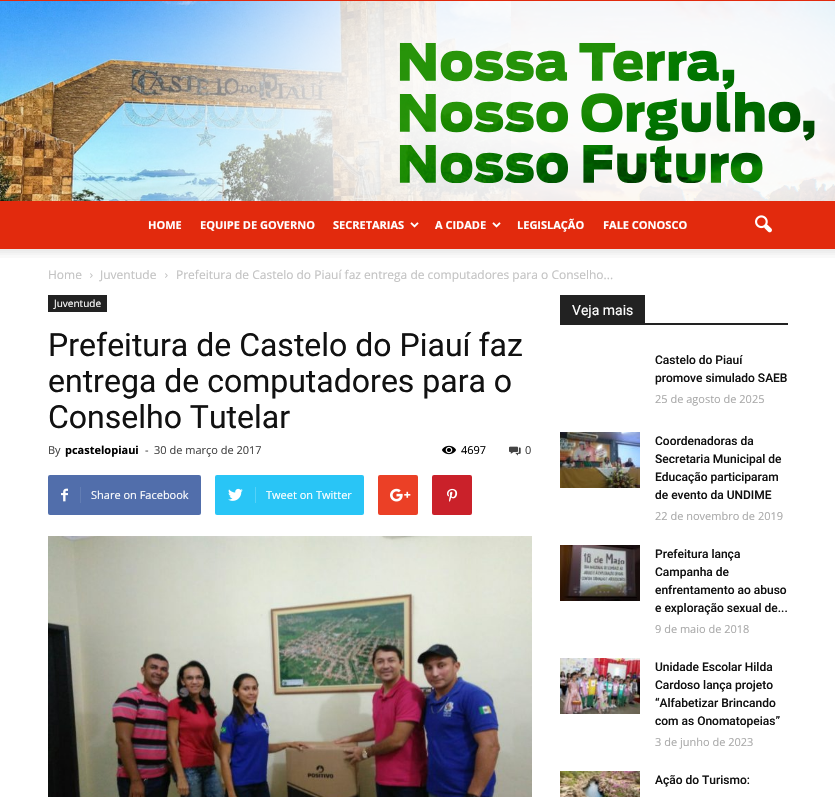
static SkFont makeFont(const char* family, int weight, float size, bool italic = false) {
  SkFontStyle style(weight, SkFontStyle::kNormal_Width,
    italic ? SkFontStyle::kItalic_Slant : SkFontStyle::kUpright_Slant);
  SkFont result(fontMgr->matchFamilyStyle(family, style), size);
  result.setSubpixel(true);
  return result;
}

static void text(SkCanvas* c, const char* s, float x, float y, const SkFont& font, SkColor color) {
  SkPaint ink(SkColor4f::FromColor(color));
  ink.setAntiAlias(true);
  c->drawString(s, x, y, font, ink);
}

static void box(SkCanvas* c, float l, float t, float r, float b, SkColor color) {
  SkPaint ink(SkColor4f::FromColor(color));
  ink.setAntiAlias(true);
  c->drawRect(SkRect::MakeLTRB(l, t, r, b), ink);
}

static void roundBox(SkCanvas* c, float l, float t, float r, float b, float radius, SkColor color) {
  SkPaint ink(SkColor4f::FromColor(color));
  ink.setAntiAlias(true);
  c->drawRoundRect(SkRect::MakeLTRB(l, t, r, b), radius, radius, ink);
}

static void picture(SkCanvas* c, const char* path, float l, float t, float r, float b) {
  auto image = SkImages::DeferredFromEncodedData(SkData::MakeFromFileName(path));
  c->drawImageRect(image, SkRect::MakeLTRB(l, t, r, b), SkSamplingOptions());
}

void draw(SkCanvas* c) {
  SkPaint paint;
  paint.setAntiAlias(true);
  c->clear(0xffffffff);
  box(c, 0, 0, 835, 1, 0xffe22a0d);
  picture(c, "img_01.png", 0, 1, 835, 201);
  box(c, 0, 201, 835, 249, 0xffe22a0d);
  SkFont face1 = makeFont("Open Sans", 700, 11);
  text(c, "HOME", 148, 229, face1, 0xffffffff);
  text(c, "EQUIPE DE GOVERNO", 200, 229, face1, 0xffffffff);
  text(c, "SECRETARIAS", 333, 229, face1, 0xffffffff);
  picture(c, "img_02.png", 410, 222, 419, 228);
  text(c, "A CIDADE", 435, 229, face1, 0xffffffff);
  picture(c, "img_02.png", 492, 222, 501, 228);
  text(c, "LEGISLAÇÃO", 517, 229, face1, 0xffffffff);
  text(c, "FALE CONOSCO", 603, 229, face1, 0xffffffff);
  picture(c, "img_03.png", 755, 215, 772, 233);
  picture(c, "img_04.png", 0, 249, 835, 258);
  SkFont face2 = makeFont("Open Sans", 400, 12);
  text(c, "Home", 48, 279, face2, 0xffc3c3c3);
  picture(c, "img_05.png", 90, 273, 93, 278);
  text(c, "Juventude", 100, 279, face2, 0xffc3c3c3);
  picture(c, "img_05.png", 165, 273, 168, 278);
  text(c, "Prefeitura de Castelo do Piauí faz entrega de computadores para o Conselho...", 176, 279, face2, 0xffc3c3c3);
  box(c, 48, 295, 107, 312, 0xff222222);
  SkFont face3 = makeFont("Open Sans", 400, 10);
  text(c, "Juventude", 54, 307, face3, 0xffffffff);
  SkFont face4 = makeFont("Roboto", 400, 32);
  text(c, "Prefeitura de Castelo do Piauí faz", 48, 356, face4, 0xff111111);
  text(c, "entrega de computadores para o", 48, 392, face4, 0xff111111);
  text(c, "Conselho Tutelar", 48, 428, face4, 0xff111111);
  SkFont face5 = makeFont("Open Sans", 400, 11);
  text(c, "By", 48, 454, face5, 0xff444444);
  text(c, "pcastelopiaui", 65, 454, face1, 0xff000000);
  text(c, "-", 145, 454, face5, 0xff444444);
  text(c, "30 de março de 2017", 154, 454, face5, 0xff444444);
  picture(c, "img_06.png", 442, 445, 456, 455);
  text(c, "4697", 461, 454, face5, 0xff000000);
  picture(c, "img_07.png", 509, 446, 521, 456);
  text(c, "0", 525, 454, face5, 0xff444444);
  roundBox(c, 48, 475, 201, 515, 2, 0xff516eab);
  picture(c, "img_08.png", 61, 488, 68, 502);
  box(c, 80, 487, 81, 503, 0xff627db3);
  text(c, "Share on Facebook", 91, 499, face5, 0xffffffff);
  roundBox(c, 215, 475, 364, 515, 2, 0xff29c5f6);
  picture(c, "img_09.png", 228, 488, 243, 501);
  box(c, 255, 487, 256, 503, 0xff54d1f8);
  text(c, "Tweet on Twitter", 266, 499, face5, 0xffffffff);
  roundBox(c, 378, 475, 418, 515, 2, 0xffeb4026);
  picture(c, "img_10.png", 390, 488, 411, 502);
  roundBox(c, 432, 475, 472, 515, 2, 0xffca212a);
  picture(c, "img_11.png", 447, 488, 458, 502);
  picture(c, "img_12.png", 48, 536, 532, 797);
  box(c, 560, 323, 788, 325, 0xff222222);
  box(c, 560, 295, 645, 323, 0xff222222);
  SkFont face6 = makeFont("Roboto", 400, 14);
  text(c, "Veja mais", 572, 315, face6, 0xffffffff);
  SkFont face7 = makeFont("Roboto", 500, 12);
  text(c, "Castelo do Piauí", 655, 364, face7, 0xff111111);
  text(c, "promove simulado SAEB", 655, 382, face7, 0xff111111);
  text(c, "25 de agosto de 2025", 655, 403, face5, 0xffaaaaaa);
  picture(c, "img_13.png", 560, 432, 640, 488);
  text(c, "Coordenadoras da", 655, 445, face7, 0xff111111);
  text(c, "Secretaria Municipal de", 655, 463, face7, 0xff111111);
  text(c, "Educação participaram", 655, 481, face7, 0xff111111);
  text(c, "de evento da UNDIME", 655, 499, face7, 0xff111111);
  text(c, "22 de novembro de 2019", 655, 520, face5, 0xffaaaaaa);
  picture(c, "img_14.png", 560, 545, 640, 601);
  text(c, "Prefeitura lança", 655, 558, face7, 0xff111111);
  text(c, "Campanha de", 655, 576, face7, 0xff111111);
  text(c, "enfrentamento ao abuso", 655, 594, face7, 0xff111111);
  text(c, "e exploração sexual de...", 655, 612, face7, 0xff111111);
  text(c, "9 de maio de 2018", 655, 633, face5, 0xffaaaaaa);
  picture(c, "img_15.png", 560, 658, 640, 714);
  text(c, "Unidade Escolar Hilda", 655, 671, face7, 0xff111111);
  text(c, "Cardoso lança projeto", 655, 689, face7, 0xff111111);
  text(c, "“Alfabetizar Brincando", 655, 707, face7, 0xff111111);
  text(c, "com as Onomatopeias”", 655, 725, face7, 0xff111111);
  text(c, "3 de junho de 2023", 655, 746, face5, 0xffaaaaaa);
  picture(c, "img_16.png", 560, 771, 640, 797);
  text(c, "Ação do Turismo:", 655, 784, face7, 0xff111111);
}
